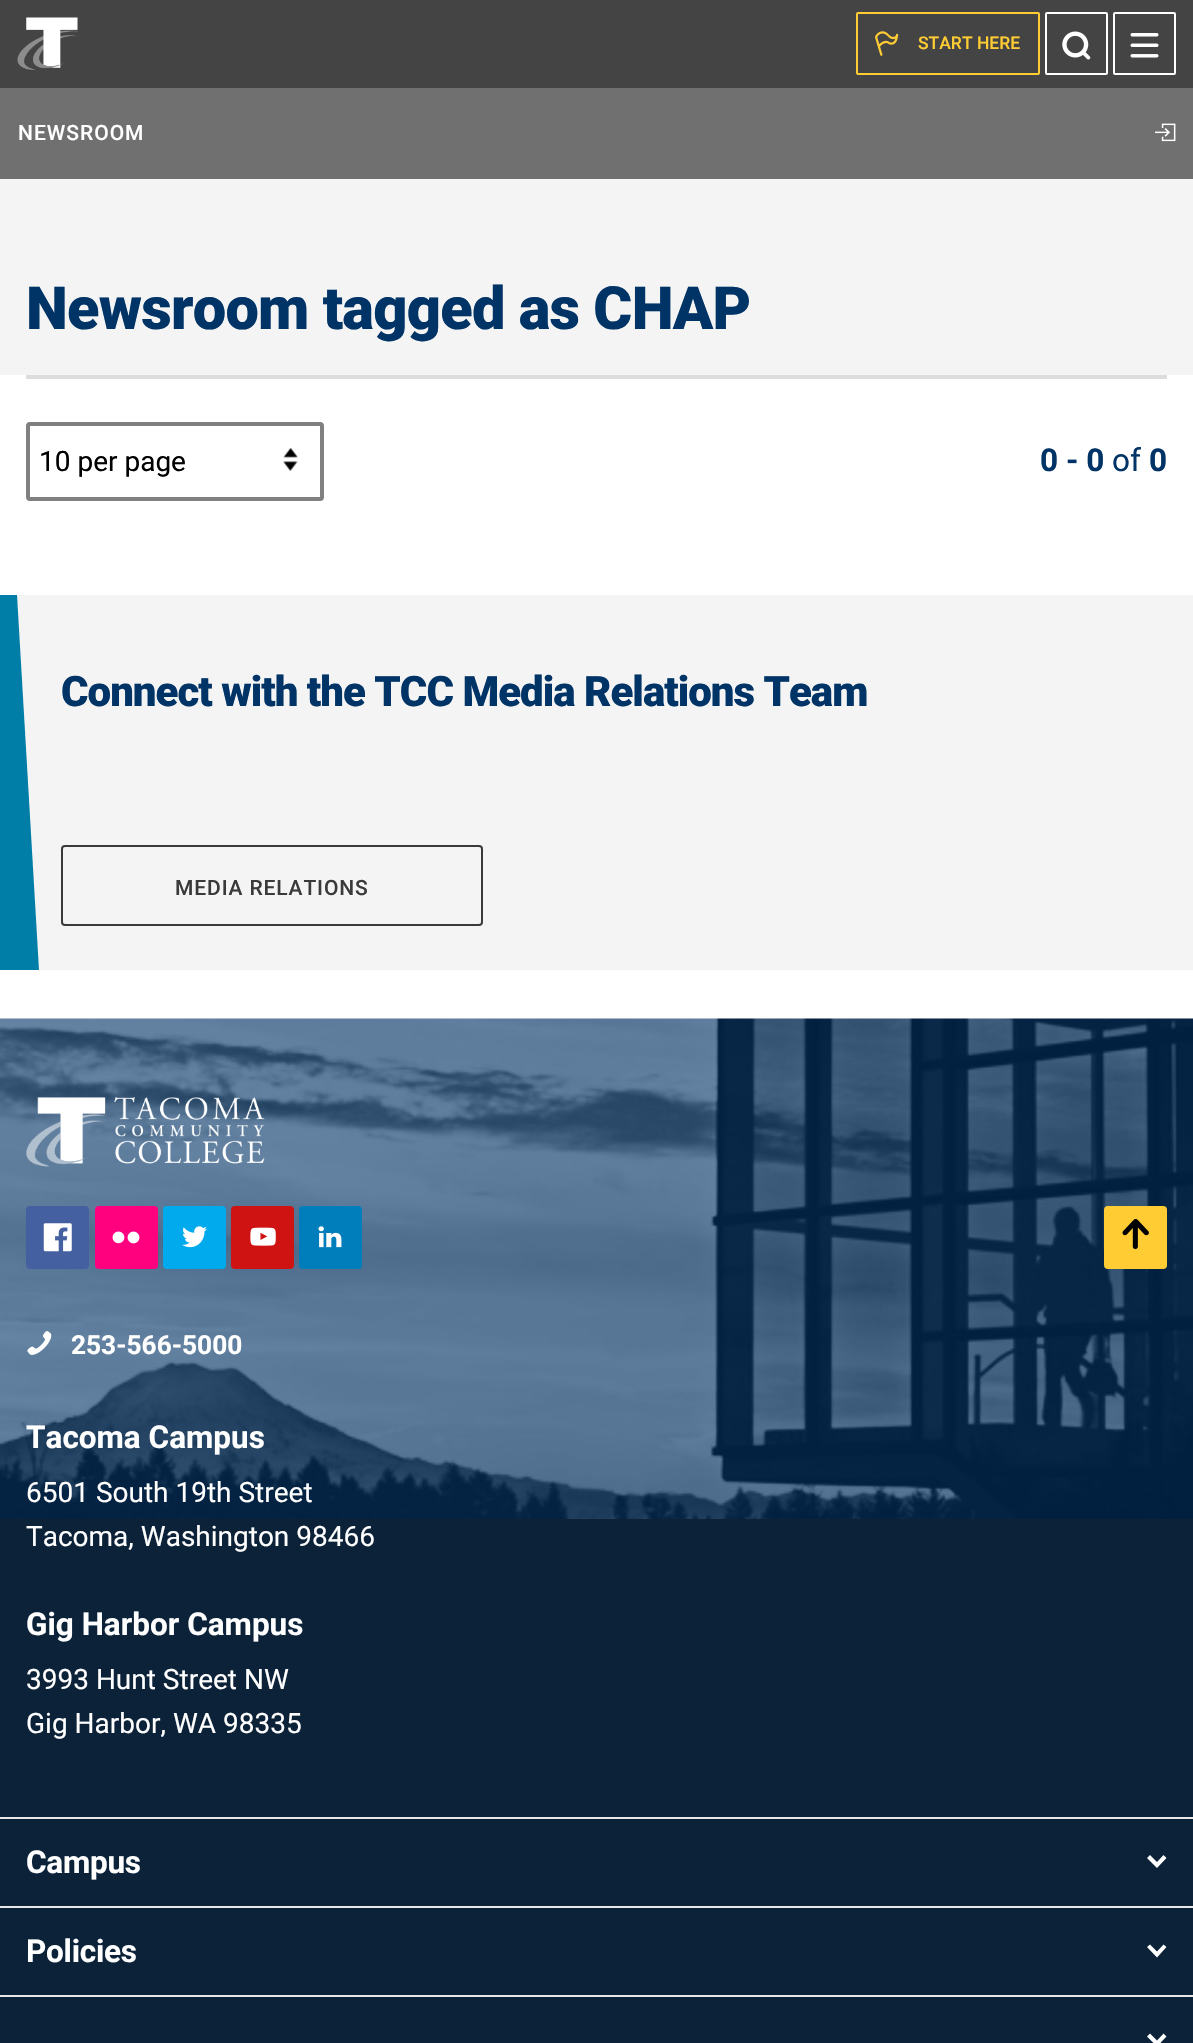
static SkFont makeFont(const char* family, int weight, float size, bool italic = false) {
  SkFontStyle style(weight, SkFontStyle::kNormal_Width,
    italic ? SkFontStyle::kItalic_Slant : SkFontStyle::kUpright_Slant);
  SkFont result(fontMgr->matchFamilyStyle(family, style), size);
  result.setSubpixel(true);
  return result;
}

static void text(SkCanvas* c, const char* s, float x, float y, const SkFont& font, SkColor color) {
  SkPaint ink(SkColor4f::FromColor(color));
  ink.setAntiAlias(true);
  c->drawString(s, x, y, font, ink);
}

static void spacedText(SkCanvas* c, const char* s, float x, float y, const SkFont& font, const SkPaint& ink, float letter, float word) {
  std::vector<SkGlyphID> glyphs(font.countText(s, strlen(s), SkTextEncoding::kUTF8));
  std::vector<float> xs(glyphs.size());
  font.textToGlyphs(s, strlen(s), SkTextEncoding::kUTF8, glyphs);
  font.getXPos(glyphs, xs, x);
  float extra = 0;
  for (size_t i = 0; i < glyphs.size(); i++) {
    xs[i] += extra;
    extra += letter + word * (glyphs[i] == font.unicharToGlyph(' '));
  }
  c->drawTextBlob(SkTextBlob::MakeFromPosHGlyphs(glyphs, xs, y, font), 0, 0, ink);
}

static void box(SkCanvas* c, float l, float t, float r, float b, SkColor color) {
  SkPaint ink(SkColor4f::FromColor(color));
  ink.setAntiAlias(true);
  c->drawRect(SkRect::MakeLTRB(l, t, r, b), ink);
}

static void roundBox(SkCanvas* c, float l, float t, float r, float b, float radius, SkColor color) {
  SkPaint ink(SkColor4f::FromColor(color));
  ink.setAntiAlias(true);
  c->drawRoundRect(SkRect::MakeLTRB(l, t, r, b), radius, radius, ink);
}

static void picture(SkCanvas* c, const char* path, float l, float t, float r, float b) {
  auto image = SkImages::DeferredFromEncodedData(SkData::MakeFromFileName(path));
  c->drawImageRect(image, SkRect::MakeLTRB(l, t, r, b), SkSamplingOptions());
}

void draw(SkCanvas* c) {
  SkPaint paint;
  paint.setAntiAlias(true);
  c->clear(0xffffffff);
  box(c, 0, 0, 1193, 88, 0xff444444);
  picture(c, "img_01.png", 17, 17, 78, 70);
  paint.setStyle(SkPaint::kStroke_Style);
  paint.setStrokeWidth(2);
  paint.setColor(0xffffcc33);
  c->drawRoundRect(SkRect::MakeLTRB(857, 13, 1039, 74), 1, 1, paint);
  picture(c, "img_02.png", 875, 31, 899, 56);
  SkFont face1 = makeFont("Roboto", 500, 17.5f);
  text(c, "START HERE", 918, 49, face1, 0xffffcc33);
  paint.setColor(0xffffffff);
  c->drawRoundRect(SkRect::MakeLTRB(1046, 13, 1107, 74), 1, 1, paint);
  picture(c, "img_03.png", 1062, 31, 1091, 60);
  c->drawRoundRect(SkRect::MakeLTRB(1114, 13, 1175, 74), 1, 1, paint);
  picture(c, "img_04.png", 1130, 33, 1159, 58);
  box(c, 0, 88, 1193, 179, 0xff707070);
  SkFont face2 = makeFont("Roboto", 500, 21);
  paint.setStyle(SkPaint::kFill_Style);
  spacedText(c, "NEWSROOM", 18, 140, face2, paint, 1, 0);
  picture(c, "img_05.png", 1155, 123, 1176, 142);
  box(c, 0, 179, 1193, 375, 0xfff4f4f4);
  SkFont face3 = makeFont("Roboto", 900, 59.5f);
  paint.setColor(0xff003366);
  spacedText(c, "Newsroom tagged as CHAP", 26, 329, face3, paint, -0.75f, 0);
  box(c, 26, 375, 1167, 379, 0xffdddddd);
  picture(c, "img_06.png", 283, 448, 298, 471);
  paint.setStyle(SkPaint::kStroke_Style);
  paint.setStrokeWidth(4);
  paint.setColor(0xff808080);
  c->drawRoundRect(SkRect::MakeLTRB(28, 424, 322, 499), 2, 2, paint);
  SkFont face4 = makeFont("Roboto", 400, 28);
  text(c, "10 per page", 39, 471, face4, 0xff000000);
  SkFont face5 = makeFont("Roboto", 700, 31.5f);
  text(c, "0 - 0", 1040, 471, face5, 0xff003366);
  SkFont face6 = makeFont("Roboto", 400, 31.5f);
  text(c, "of", 1112, 471, face6, 0xff003366);
  text(c, "0", 1149, 471, face5, 0xff003366);
  box(c, 17, 595, 1193, 970, 0xfff4f4f4);
  paint.setStyle(SkPaint::kFill_Style);
  paint.setColor(0xff007ea8);
  c->drawPath(SkPathBuilder().moveTo(-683, 595).lineTo(17, 595).lineTo(39, 970).lineTo(-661, 970).close().detach(), paint);
  SkFont face7 = makeFont("Roboto", 900, 42);
  paint.setColor(0xff003366);
  spacedText(c, "Connect with the TCC Media Relations Team", 61, 706, face7, paint, -1, 0);
  paint.setStyle(SkPaint::kStroke_Style);
  paint.setStrokeWidth(2);
  paint.setColor(0xff3a3a3a);
  c->drawRoundRect(SkRect::MakeLTRB(62, 846, 482, 925), 3, 3, paint);
  paint.setStyle(SkPaint::kFill_Style);
  spacedText(c, "MEDIA RELATIONS", 175, 895, face2, paint, 0.9f, 0);
  box(c, 0, 1519, 1193, 2043, 0xff0b2239);
  picture(c, "img_07.png", 0, 1018, 1193, 1519);
  picture(c, "img_08.png", 26, 1097, 265, 1167);
  roundBox(c, 26, 1206, 89, 1269, 4, 0xff4460a0);
  picture(c, "img_09.png", 43, 1223, 72, 1252);
  roundBox(c, 95, 1206, 158, 1269, 4, 0xffff007f);
  picture(c, "img_10.png", 112, 1231, 140, 1244);
  roundBox(c, 163, 1206, 226, 1269, 4, 0xff00aaec);
  picture(c, "img_11.png", 182, 1226, 207, 1248);
  roundBox(c, 231, 1206, 294, 1269, 4, 0xffce1312);
  picture(c, "img_12.png", 250, 1227, 276, 1246);
  roundBox(c, 299, 1206, 362, 1269, 4, 0xff007ebb);
  picture(c, "img_13.png", 318, 1226, 342, 1248);
  roundBox(c, 1104, 1206, 1167, 1269, 4, 0xffffcc33);
  picture(c, "img_14.png", 1122, 1219, 1149, 1250);
  picture(c, "img_15.png", 27, 1331, 52, 1355);
  SkFont face8 = makeFont("Roboto", 700, 26.25f);
  text(c, "253-566-5000", 71, 1354, face8, 0xffffffff);
  text(c, "Tacoma Campus", 26, 1448, face5, 0xffffffff);
  text(c, "6501 South 19th Street", 26, 1502, face4, 0xffffffff);
  text(c, "Tacoma, Washington 98466", 26, 1546, face4, 0xffffffff);
  text(c, "Gig Harbor Campus", 26, 1635, face5, 0xffffffff);
  text(c, "3993 Hunt Street NW", 26, 1689, face4, 0xffffffff);
  text(c, "Gig Harbor, WA 98335", 26, 1733, face4, 0xffffffff);
  box(c, 0, 1817, 1193, 1819, 0xffe8e8e8);
  box(c, 0, 1906, 1193, 1908, 0xffe8e8e8);
  paint.setColor(0xffffffff);
  spacedText(c, "Campus", 26, 1873, face5, paint, -0.25f, 0);
  c->drawPath(SkPathBuilder().moveTo(1166.5f, 1858).lineTo(1157, 1868).lineTo(1147, 1858).lineTo(1150, 1855).lineTo(1157, 1862).lineTo(1163.5f, 1855).close().detach(), paint);
  box(c, 0, 1995, 1193, 1997, 0xffe8e8e8);
  spacedText(c, "Policies", 26, 1962, face5, paint, -0.25f, 0);
  c->drawPath(SkPathBuilder().moveTo(1166.5f, 1947).lineTo(1157, 1957.5f).lineTo(1147, 1947).lineTo(1150, 1944.5f).lineTo(1157, 1951.5f).lineTo(1163.5f, 1944.5f).close().detach(), paint);
  c->drawPath(SkPathBuilder().moveTo(1166.5f, 2036.5f).lineTo(1157, 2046.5f).lineTo(1147, 2036.5f).lineTo(1150, 2033.5f).lineTo(1157, 2040.5f).lineTo(1163.5f, 2033.5f).close().detach(), paint);
}
